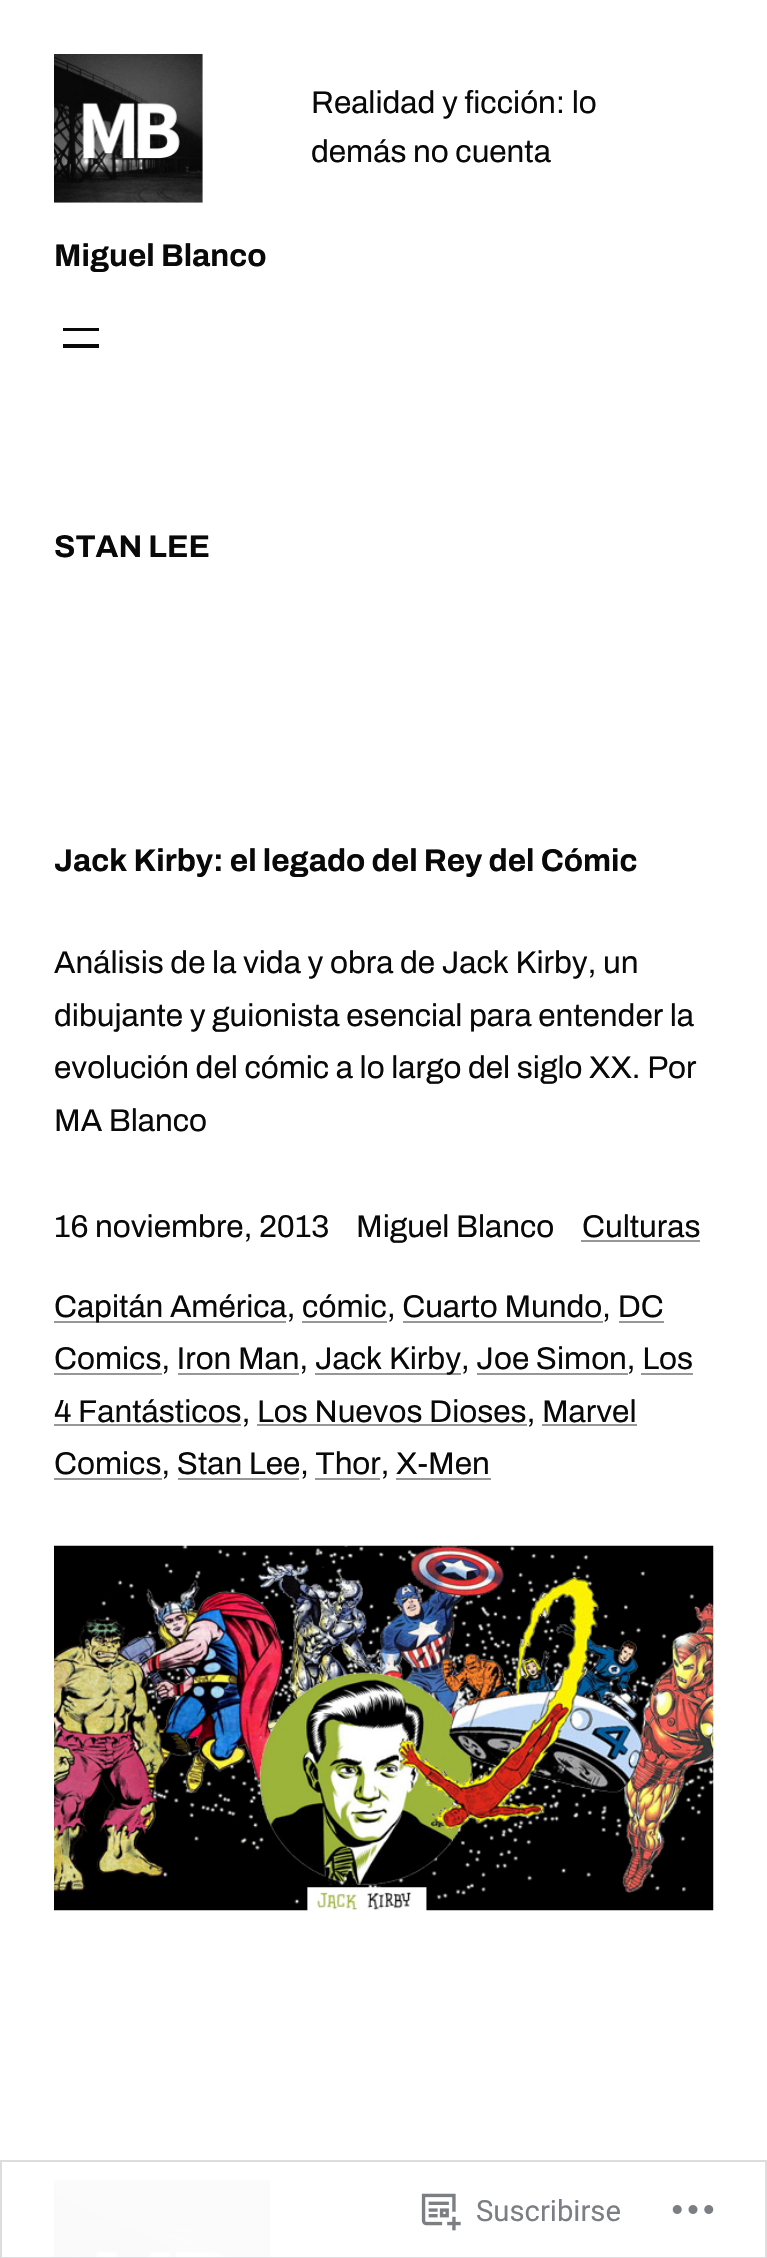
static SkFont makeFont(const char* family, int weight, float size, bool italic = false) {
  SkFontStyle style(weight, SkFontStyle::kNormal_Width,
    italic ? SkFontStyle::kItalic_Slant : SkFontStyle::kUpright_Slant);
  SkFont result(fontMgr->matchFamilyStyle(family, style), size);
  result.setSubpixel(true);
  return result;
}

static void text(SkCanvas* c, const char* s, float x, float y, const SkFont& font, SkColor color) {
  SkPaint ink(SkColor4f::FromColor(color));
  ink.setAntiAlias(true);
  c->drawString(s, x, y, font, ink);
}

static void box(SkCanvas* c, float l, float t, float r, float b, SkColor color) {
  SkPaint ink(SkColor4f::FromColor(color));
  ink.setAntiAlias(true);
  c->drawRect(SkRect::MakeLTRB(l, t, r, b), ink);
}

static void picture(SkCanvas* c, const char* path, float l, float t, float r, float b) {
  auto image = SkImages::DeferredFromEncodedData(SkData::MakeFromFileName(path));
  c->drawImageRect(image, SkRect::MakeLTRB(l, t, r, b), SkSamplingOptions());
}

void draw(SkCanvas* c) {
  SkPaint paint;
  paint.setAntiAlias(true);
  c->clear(0xffffffff);
  picture(c, "img_01.png", 54, 54, 203, 203);
  SkFont face1 = makeFont("Archivo", 400, 31.5f);
  text(c, "Realidad y ficción: lo", 311, 113, face1, 0xff090909);
  text(c, "demás no cuenta", 311, 162, face1, 0xff090909);
  SkFont face2 = makeFont("Archivo", 700, 31.5f);
  text(c, "Miguel Blanco", 54, 266, face2, 0xff090909);
  box(c, 63, 328, 99, 331, 0xff090909);
  box(c, 63, 344, 99, 348, 0xff090909);
  text(c, "STAN LEE", 54, 557, face2, 0xff090909);
  text(c, "Jack Kirby: el legado del Rey del Cómic", 54, 871, face2, 0xff090909);
  text(c, "Análisis de la vida y obra de Jack Kirby, un", 54, 973, face1, 0xff090909);
  text(c, "dibujante y guionista esencial para entender la", 54, 1026, face1, 0xff090909);
  text(c, "evolución del cómic a lo largo del siglo XX. Por", 54, 1078, face1, 0xff090909);
  text(c, "MA Blanco", 54, 1131, face1, 0xff090909);
  text(c, "16 noviembre, 2013", 54, 1237, face1, 0xff090909);
  text(c, "Miguel Blanco", 356, 1237, face1, 0xff090909);
  text(c, "Culturas", 582, 1237, face1, 0xff090909);
  box(c, 581, 1240, 700, 1242, 0xff979797);
  box(c, 54, 1321, 286, 1323, 0xff979797);
  text(c, "Capitán América, cómic, Cuarto Mundo, DC", 54, 1317, face1, 0xff090909);
  box(c, 302, 1321, 387, 1323, 0xff979797);
  box(c, 403, 1321, 603, 1323, 0xff979797);
  box(c, 54, 1373, 162, 1375, 0xff979797);
  text(c, "Comics, Iron Man,", 54, 1369, face1, 0xff090909);
  box(c, 619, 1321, 664, 1323, 0xff979797);
  box(c, 315, 1373, 461, 1375, 0xff979797);
  text(c, "Jack Kirby, Joe Simon, Los", 315, 1369, face1, 0xff090909);
  box(c, 178, 1373, 299, 1375, 0xff979797);
  box(c, 477, 1373, 628, 1375, 0xff979797);
  box(c, 54, 1424, 241, 1426, 0xff979797);
  text(c, "4 Fantásticos, Los Nuevos Dioses, Marvel", 54, 1422, face1, 0xff090909);
  box(c, 641, 1373, 693, 1375, 0xff979797);
  box(c, 257, 1424, 527, 1426, 0xff979797);
  box(c, 54, 1478, 162, 1480, 0xff979797);
  text(c, "Comics, Stan Lee, Thor, X-Men", 54, 1474, face1, 0xff090909);
  box(c, 542, 1424, 637, 1426, 0xff979797);
  box(c, 178, 1478, 299, 1480, 0xff979797);
  box(c, 315, 1478, 380, 1480, 0xff979797);
  box(c, 396, 1478, 491, 1480, 0xff979797);
  picture(c, "img_02.png", 54, 1545, 714, 1911);
  picture(c, "img_03.png", 54, 2180, 270, 2258);
  paint.setStyle(SkPaint::kStroke_Style);
  paint.setStrokeWidth(2);
  paint.setColor(0xfadcdcde);
  c->drawRect(SkRect::MakeLTRB(1, 2161, 766, 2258), paint);
  picture(c, "img_04.png", 421, 2193, 461, 2231);
  SkFont face3 = makeFont("Roboto", 400, 29.25f);
  text(c, "Suscribirse", 476, 2221, face3, 0xff7b7f85);
  picture(c, "img_05.png", 672, 2205, 714, 2214);
}
